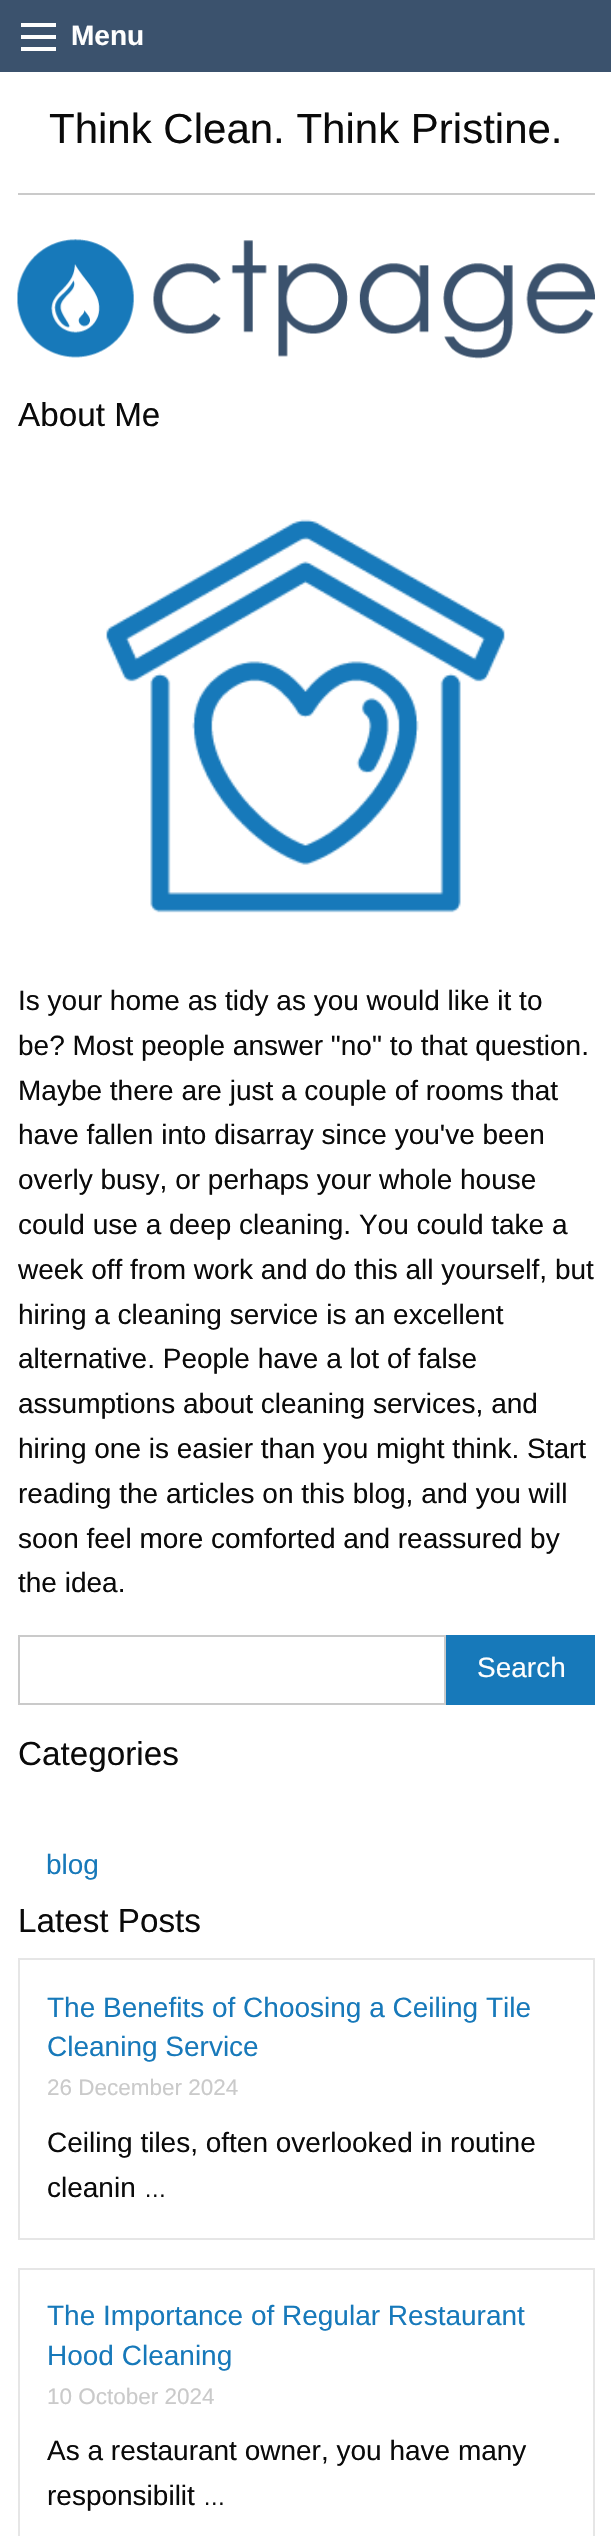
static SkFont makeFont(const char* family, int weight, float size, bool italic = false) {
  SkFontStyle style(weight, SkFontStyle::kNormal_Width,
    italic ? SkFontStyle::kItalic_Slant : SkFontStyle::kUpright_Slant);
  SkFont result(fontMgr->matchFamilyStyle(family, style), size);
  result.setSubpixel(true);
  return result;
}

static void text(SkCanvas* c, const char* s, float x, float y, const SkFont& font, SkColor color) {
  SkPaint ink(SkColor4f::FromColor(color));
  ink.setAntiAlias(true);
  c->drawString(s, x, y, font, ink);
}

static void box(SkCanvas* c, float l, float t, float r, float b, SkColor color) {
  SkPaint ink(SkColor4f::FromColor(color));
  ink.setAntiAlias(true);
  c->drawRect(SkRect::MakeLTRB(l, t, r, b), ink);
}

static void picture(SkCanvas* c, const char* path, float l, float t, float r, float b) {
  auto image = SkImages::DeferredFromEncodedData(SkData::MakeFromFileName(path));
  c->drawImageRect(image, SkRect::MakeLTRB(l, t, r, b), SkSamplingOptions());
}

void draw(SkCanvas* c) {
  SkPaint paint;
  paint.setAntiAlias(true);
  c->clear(0xffffffff);
  box(c, 0, 0, 611, 72, 0xff3b526d);
  box(c, 21, 47, 56, 51, 0xfffefefe);
  box(c, 21, 35, 56, 39, 0xfffefefe);
  box(c, 21, 23, 56, 27, 0xfffefefe);
  SkFont face1 = makeFont("Liberation Sans", 700, 28);
  text(c, "Menu", 71, 45, face1, 0xfffefefe);
  SkFont face2 = makeFont("Liberation Sans", 400, 42);
  text(c, "Think Clean. Think Pristine.", 49, 143, face2, 0xff0a0a0a);
  box(c, 18, 193, 595, 195, 0xffcacaca);
  picture(c, "img_01.png", 17, 239, 595, 359);
  SkFont face3 = makeFont("Liberation Sans", 400, 33.25f);
  text(c, "About Me", 18, 426, face3, 0xff0a0a0a);
  picture(c, "img_02.png", 106, 519, 505, 913);
  SkFont face4 = makeFont("Liberation Sans", 400, 28);
  text(c, "Is your home as tidy as you would like it to", 18, 1010, face4, 0xff0a0a0a);
  text(c, "be? Most people answer \"no\" to that question.", 18, 1055, face4, 0xff0a0a0a);
  text(c, "Maybe there are just a couple of rooms that", 18, 1100, face4, 0xff0a0a0a);
  text(c, "have fallen into disarray since you've been", 18, 1144, face4, 0xff0a0a0a);
  text(c, "overly busy, or perhaps your whole house", 18, 1189, face4, 0xff0a0a0a);
  text(c, "could use a deep cleaning. You could take a", 18, 1234, face4, 0xff0a0a0a);
  text(c, "week off from work and do this all yourself, but", 18, 1279, face4, 0xff0a0a0a);
  text(c, "hiring a cleaning service is an excellent", 18, 1324, face4, 0xff0a0a0a);
  text(c, "alternative. People have a lot of false", 18, 1368, face4, 0xff0a0a0a);
  text(c, "assumptions about cleaning services, and", 18, 1413, face4, 0xff0a0a0a);
  text(c, "hiring one is easier than you might think. Start", 18, 1458, face4, 0xff0a0a0a);
  text(c, "reading the articles on this blog, and you will", 18, 1503, face4, 0xff0a0a0a);
  text(c, "soon feel more comforted and reassured by", 18, 1548, face4, 0xff0a0a0a);
  text(c, "the idea.", 18, 1592, face4, 0xff0a0a0a);
  paint.setStyle(SkPaint::kStroke_Style);
  paint.setStrokeWidth(2);
  paint.setColor(0xffcacaca);
  c->drawRect(SkRect::MakeLTRB(19, 1636, 445, 1704), paint);
  box(c, 446, 1635, 595, 1705, 0xff1779ba);
  text(c, "Search", 477, 1677, face4, 0xfffefefe);
  text(c, "Categories", 18, 1765, face3, 0xff0a0a0a);
  text(c, "blog", 46, 1874, face4, 0xff1779ba);
  text(c, "Latest Posts", 18, 1932, face3, 0xff0a0a0a);
  paint.setColor(0xffe6e6e6);
  c->drawRect(SkRect::MakeLTRB(19, 1959, 594, 2239), paint);
  text(c, "The Benefits of Choosing a Ceiling Tile", 47, 2017, face4, 0xff1779ba);
  text(c, "Cleaning Service", 47, 2056, face4, 0xff1779ba);
  SkFont face5 = makeFont("Liberation Sans", 400, 22.5f);
  text(c, "26 December 2024", 47, 2095, face5, 0xffcacaca);
  text(c, "Ceiling tiles, often overlooked in routine", 47, 2152, face4, 0xff0a0a0a);
  text(c, "cleanin", 47, 2197, face4, 0xff0a0a0a);
  text(c, "…", 144, 2197, face5, 0xff0a0a0a);
  c->drawRect(SkRect::MakeLTRB(19, 2269, 594, 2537), paint);
  text(c, "The Importance of Regular Restaurant", 47, 2325, face4, 0xff1779ba);
  text(c, "Hood Cleaning", 47, 2365, face4, 0xff1779ba);
  text(c, "10 October 2024", 47, 2404, face5, 0xffcacaca);
  text(c, "As a restaurant owner, you have many", 47, 2460, face4, 0xff0a0a0a);
  text(c, "responsibilit", 47, 2505, face4, 0xff0a0a0a);
  text(c, "…", 203, 2505, face5, 0xff0a0a0a);
}
